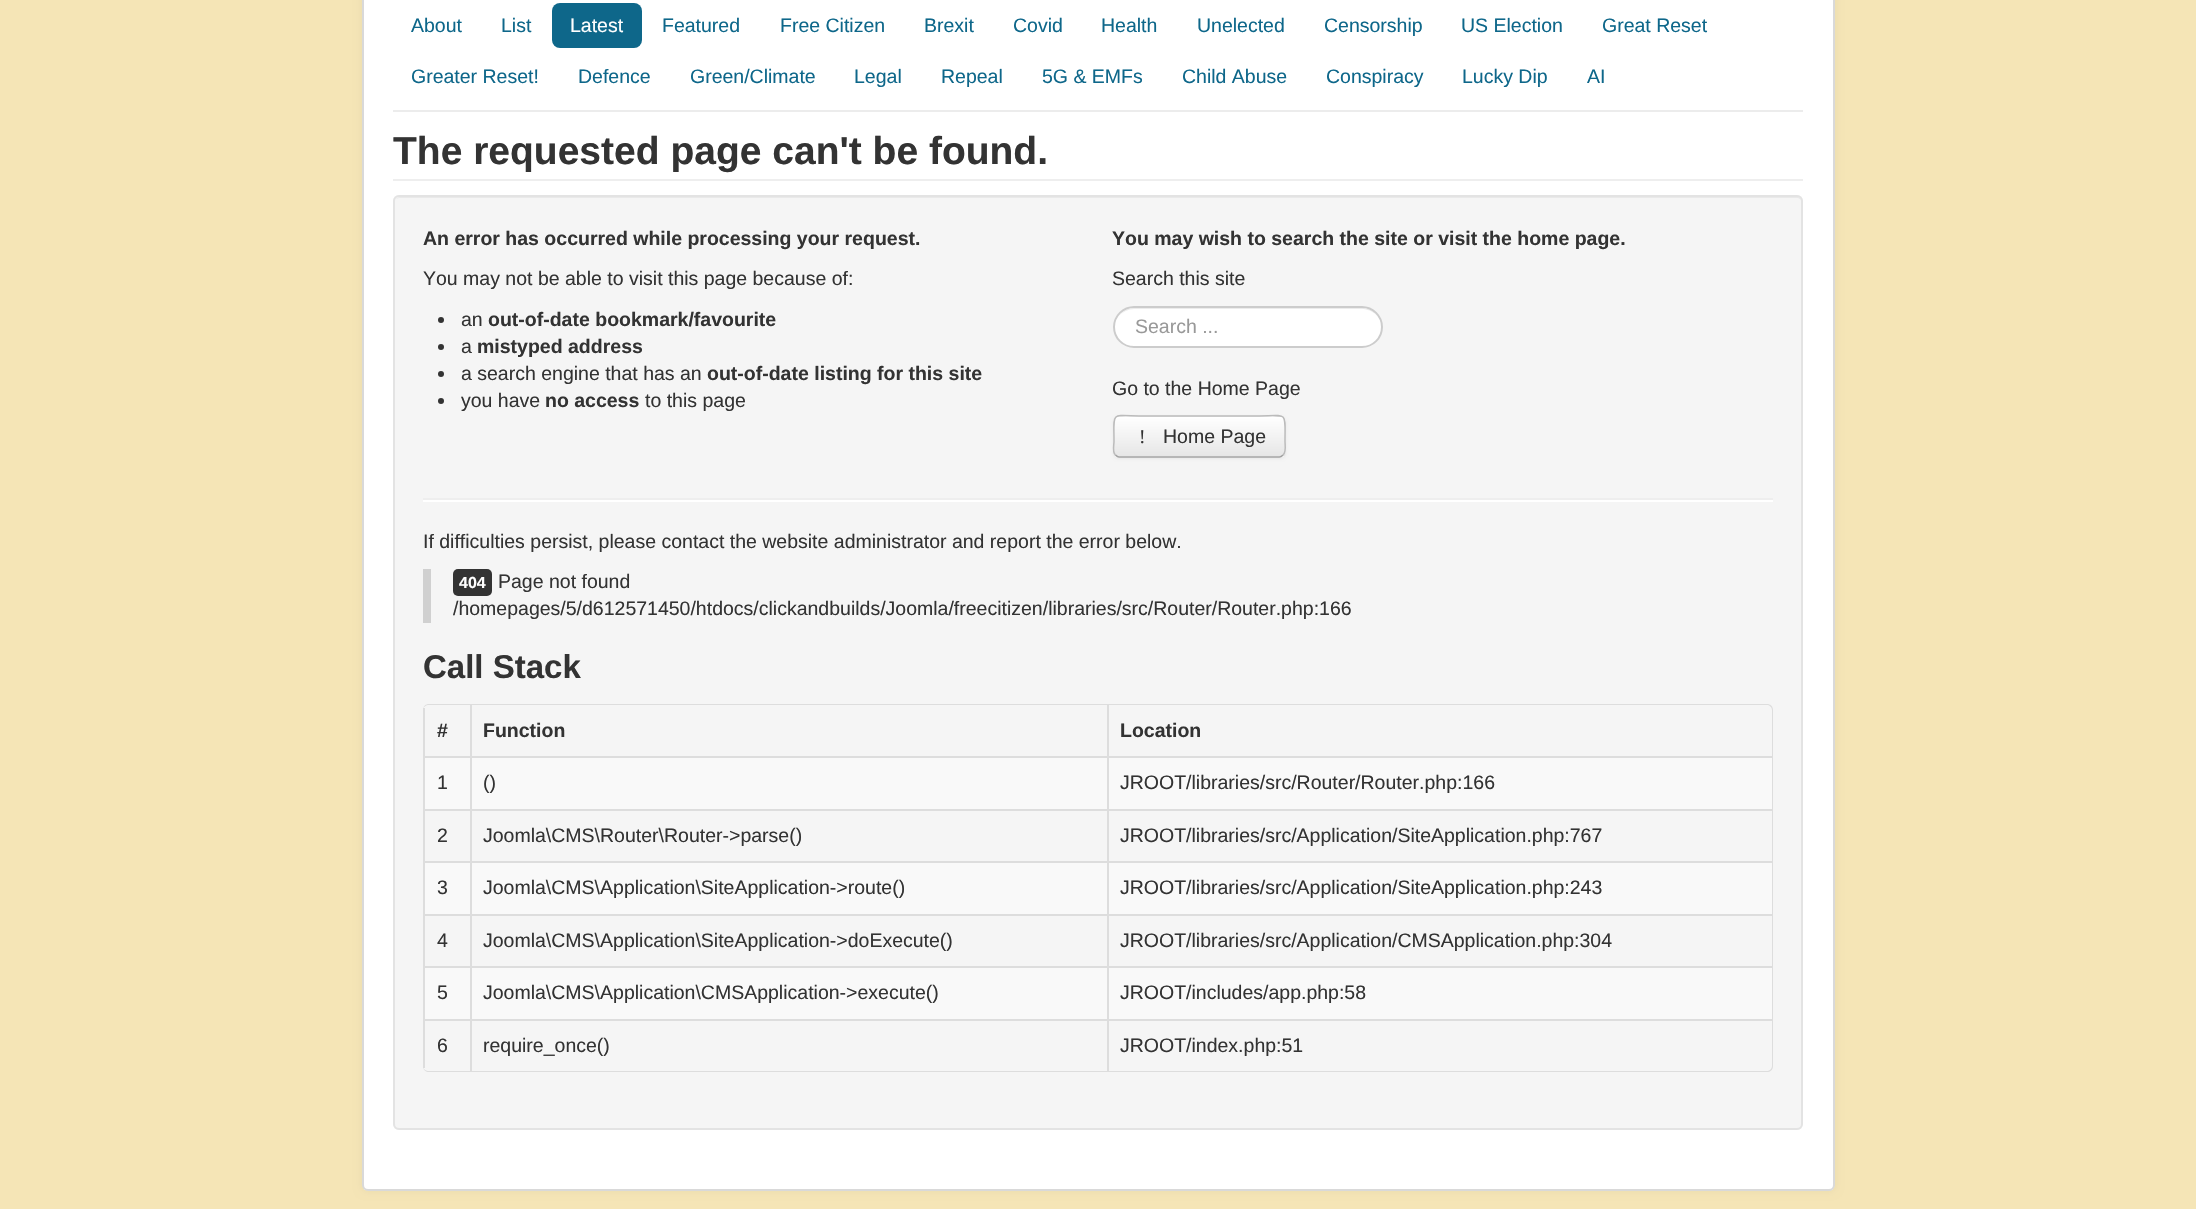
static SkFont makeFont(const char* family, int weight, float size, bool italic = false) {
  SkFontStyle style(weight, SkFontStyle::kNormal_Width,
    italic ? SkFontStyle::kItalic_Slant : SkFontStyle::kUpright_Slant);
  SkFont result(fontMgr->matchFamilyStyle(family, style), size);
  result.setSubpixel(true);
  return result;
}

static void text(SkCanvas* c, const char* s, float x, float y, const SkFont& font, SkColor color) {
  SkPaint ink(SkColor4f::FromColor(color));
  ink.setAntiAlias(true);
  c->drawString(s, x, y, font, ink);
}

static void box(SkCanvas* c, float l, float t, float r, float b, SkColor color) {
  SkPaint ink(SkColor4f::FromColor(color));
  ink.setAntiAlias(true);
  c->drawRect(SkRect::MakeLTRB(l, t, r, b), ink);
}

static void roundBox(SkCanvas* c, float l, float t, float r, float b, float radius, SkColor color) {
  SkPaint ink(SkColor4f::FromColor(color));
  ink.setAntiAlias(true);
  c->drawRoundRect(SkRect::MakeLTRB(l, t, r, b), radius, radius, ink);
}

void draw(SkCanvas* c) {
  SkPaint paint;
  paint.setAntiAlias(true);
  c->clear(0xfff5e5b6);
  paint.setColor(0x0d000000);
  paint.setMaskFilter(SkMaskFilter::MakeBlur(kNormal_SkBlurStyle, 4.5f));
  c->drawRoundRect(SkRect::MakeLTRB(362, -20, 1835, 1191), 6, 6, paint);
  paint.setMaskFilter(nullptr);
  roundBox(c, 362, -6, 1835, 1191, 6, 0xffffffff);
  paint.setStyle(SkPaint::kStroke_Style);
  paint.setStrokeWidth(2);
  paint.setColor(0x26000000);
  c->drawRoundRect(SkRect::MakeLTRB(363, -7, 1834, 1190), 5, 5, paint);
  box(c, 393, 110, 1803, 112, 0xffececec);
  SkFont face1 = makeFont("Liberation Sans", 400, 19.5f);
  text(c, "About", 411, 32, face1, 0xff0e678a);
  text(c, "List", 501, 32, face1, 0xff0e678a);
  roundBox(c, 552, 3, 642, 48, 8, 0xff0e678a);
  text(c, "Latest", 570, 32, face1, 0xffffffff);
  text(c, "Featured", 662, 32, face1, 0xff0e678a);
  text(c, "Free Citizen", 780, 32, face1, 0xff0e678a);
  text(c, "Brexit", 924, 32, face1, 0xff0e678a);
  text(c, "Covid", 1013, 32, face1, 0xff0e678a);
  text(c, "Health", 1101, 32, face1, 0xff0e678a);
  text(c, "Unelected", 1197, 32, face1, 0xff0e678a);
  text(c, "Censorship", 1324, 32, face1, 0xff0e678a);
  text(c, "US Election", 1461, 32, face1, 0xff0e678a);
  text(c, "Great Reset", 1602, 32, face1, 0xff0e678a);
  text(c, "Greater Reset!", 411, 83, face1, 0xff0e678a);
  text(c, "Defence", 578, 83, face1, 0xff0e678a);
  text(c, "Green/Climate", 690, 83, face1, 0xff0e678a);
  text(c, "Legal", 854, 83, face1, 0xff0e678a);
  text(c, "Repeal", 941, 83, face1, 0xff0e678a);
  text(c, "5G & EMFs", 1042, 83, face1, 0xff0e678a);
  text(c, "Child Abuse", 1182, 83, face1, 0xff0e678a);
  text(c, "Conspiracy", 1326, 83, face1, 0xff0e678a);
  text(c, "Lucky Dip", 1462, 83, face1, 0xff0e678a);
  text(c, "AI", 1587, 83, face1, 0xff0e678a);
  box(c, 393, 179, 1803, 181, 0xffeeeeee);
  SkFont face2 = makeFont("Liberation Sans", 700, 39);
  text(c, "The requested page can't be found.", 393, 164, face2, 0xff333333);
  roundBox(c, 393, 195, 1803, 1130, 6, 0xfff5f5f5);
  paint.setStyle(SkPaint::kFill_Style);
  paint.setColor(0xffe9e9e9);
  c->drawPath(SkPathBuilder().moveTo(399, 198).lineTo(1797, 198).cubicTo(1799, 198, 1802, 200, 1802, 202).cubicTo(1802, 199, 1800, 197, 1797, 197).lineTo(400, 197).cubicTo(398, 197, 397, 198, 396, 199).close().detach(), paint);
  paint.setStyle(SkPaint::kStroke_Style);
  paint.setColor(0xffe3e3e3);
  c->drawRoundRect(SkRect::MakeLTRB(394, 196, 1802, 1129), 5, 5, paint);
  SkFont face3 = makeFont("Liberation Sans", 700, 19.5f);
  text(c, "An error has occurred while processing your request.", 423, 245, face3, 0xff333333);
  text(c, "You may not be able to visit this page because of:", 423, 285, face1, 0xff333333);
  paint.setStyle(SkPaint::kFill_Style);
  paint.setColor(0xff333333);
  c->drawCircle(441, 320, 3, paint);
  text(c, "an", 461, 326, face1, 0xff333333);
  text(c, "out-of-date bookmark/favourite", 488, 326, face3, 0xff333333);
  c->drawCircle(441, 347, 3, paint);
  text(c, "a", 461, 353, face1, 0xff333333);
  text(c, "mistyped address", 477, 353, face3, 0xff333333);
  c->drawCircle(441, 374, 3, paint);
  text(c, "a search engine that has an", 461, 380, face1, 0xff333333);
  text(c, "out-of-date listing for this site", 707, 380, face3, 0xff333333);
  c->drawCircle(441, 401, 3, paint);
  text(c, "you have", 461, 407, face1, 0xff333333);
  text(c, "no access", 545, 407, face3, 0xff333333);
  text(c, "to this page", 645, 407, face1, 0xff333333);
  text(c, "You may wish to search the site or visit the home page.", 1112, 245, face3, 0xff333333);
  text(c, "Search this site", 1112, 285, face1, 0xff333333);
  roundBox(c, 1113, 306, 1383, 348, 21, 0xffffffff);
  paint.setColor(0xffececec);
  c->drawPath(SkPathBuilder().moveTo(1134, 309).lineTo(1362, 309).cubicTo(1373, 309, 1382, 318, 1382, 328).cubicTo(1382, 317, 1373, 308, 1362, 308).lineTo(1134, 308).cubicTo(1128, 308, 1123, 311, 1119, 316).cubicTo(1123, 312, 1128, 309, 1134, 309).close().detach(), paint);
  paint.setStyle(SkPaint::kStroke_Style);
  paint.setColor(0xffcccccc);
  c->drawRoundRect(SkRect::MakeLTRB(1114, 307, 1382, 347), 20, 20, paint);
  text(c, "Search ...", 1135, 333, face1, 0xff999999);
  text(c, "Go to the Home Page", 1112, 395, face1, 0xff333333);
  paint.setStyle(SkPaint::kFill_Style);
  paint.setColor(0x0d000000);
  paint.setMaskFilter(SkMaskFilter::MakeBlur(kNormal_SkBlurStyle, 1.5f));
  c->drawRoundRect(SkRect::MakeLTRB(1113, 417, 1286, 459), 6, 6, paint);
  paint.setMaskFilter(nullptr);
  roundBox(c, 1113, 416, 1286, 458, 6, 0xfff5f5f5);
  c->save();
  c->clipPath(SkPathBuilder().moveTo(1119, 416).lineTo(1280, 416).cubicTo(1283.5f, 416, 1286, 418.5f, 1286, 422).lineTo(1286, 452).cubicTo(1286, 455.5f, 1283.5f, 458, 1280, 458).lineTo(1119, 458).cubicTo(1115.5f, 458, 1113, 455.5f, 1113, 452).lineTo(1113, 422).cubicTo(1113, 418.5f, 1115.5f, 416, 1119, 416).close().detach(), true);
  {
    const SkColor colors[] = {0xffffffff, 0xffe6e6e6};
    const float stops[] = {0, 1};
    const SkPoint ends[] = {{1199, 417}, {1199, 456}};
    paint.setShader(SkGradientShader::MakeLinear(ends, colors, stops, 2, SkTileMode::kClamp));
    paint.setAlpha(255);
  }
  c->drawRect(SkRect::MakeLTRB(1113, 417, 1286, 456), paint);
  c->restore();
  paint.setStyle(SkPaint::kStroke_Style);
  paint.setStrokeWidth(1.5f);
  paint.setShader(nullptr);
  paint.setColor(0xffa2a2a2);
  c->drawPath(SkPathBuilder().moveTo(1283, 455).cubicTo(1282, 456, 1281, 457, 1279.5f, 457).lineTo(1119, 457).cubicTo(1117.5f, 457, 1116.5f, 456, 1115.5f, 455).detach(), paint);
  paint.setColor(0xffbbbbbb);
  c->drawPath(SkPathBuilder().moveTo(1115.5f, 455).cubicTo(1112, 452, 1114, 445, 1114, 441.5f).cubicTo(1114, 409.5f, 1109.5f, 416, 1146, 416).lineTo(1253, 416).cubicTo(1289, 416, 1285, 409.5f, 1285, 441.5f).cubicTo(1285, 445, 1286.5f, 452, 1283, 455).detach(), paint);
  SkFont face4 = makeFont("Liberation Serif", 400, 19.5f);
  text(c, "!", 1139, 443, face4, 0xff333333);
  text(c, "Home Page", 1163, 443, face1, 0xff333333);
  box(c, 423, 498, 1773, 500, 0xffeeeeee);
  box(c, 423, 500, 1773, 502, 0xffffffff);
  text(c, "If difficulties persist, please contact the website administrator and report the error below.", 423, 548, face1, 0xff333333);
  box(c, 423, 569, 431, 623, 0xffd0d0d0);
  roundBox(c, 453, 569, 492, 596, 5, 0xff333333);
  SkFont face5 = makeFont("Liberation Sans", 700, 16);
  text(c, "404", 459, 588, face5, 0xffffffff);
  text(c, "Page not found", 498, 588, face1, 0xff333333);
  text(c, "/homepages/5/d612571450/htdocs/clickandbuilds/Joomla/freecitizen/libraries/src/Router/Router.php:166", 453, 615, face1, 0xff333333);
  SkFont face6 = makeFont("Liberation Sans", 700, 33);
  text(c, "Call Stack", 423, 678, face6, 0xff333333);
  paint.setStyle(SkPaint::kFill_Style);
  paint.setColor(0xffdddddd);
  c->drawPath(SkPathBuilder(SkPathFillType::kEvenOdd).moveTo(429, 704).lineTo(1767, 704).cubicTo(1770, 704, 1773, 706, 1773, 710).lineTo(1773, 1066).cubicTo(1773, 1070, 1770, 1072, 1767, 1072).lineTo(429, 1072).cubicTo(426, 1072, 423, 1070, 423, 1066).lineTo(423, 710).cubicTo(423, 706, 426, 704, 429, 704).close().moveTo(429, 705).lineTo(1767, 705).cubicTo(1769, 705, 1772, 707, 1772, 710).lineTo(1772, 1066).cubicTo(1772, 1069, 1769, 1071, 1767, 1071).lineTo(429, 1071).cubicTo(426, 1071, 423, 1069, 423, 1066).lineTo(423, 710).cubicTo(423, 707, 426, 705, 429, 705).close().detach(), paint);
  box(c, 423, 708, 425, 756, 0xffdddddd);
  text(c, "#", 437, 737, face3, 0xff333333);
  box(c, 470, 705, 472, 756, 0xffdddddd);
  text(c, "Function", 483, 737, face3, 0xff333333);
  box(c, 1107, 705, 1109, 756, 0xffdddddd);
  text(c, "Location", 1120, 737, face3, 0xff333333);
  box(c, 425, 758, 470, 809, 0xfff9f9f9);
  box(c, 423, 756, 1772, 758, 0xffdddddd);
  box(c, 423, 756, 425, 809, 0xffdddddd);
  text(c, "1", 437, 789, face1, 0xff333333);
  box(c, 472, 758, 1107, 809, 0xfff9f9f9);
  box(c, 470, 756, 472, 809, 0xffdddddd);
  text(c, "()", 483, 789, face1, 0xff333333);
  box(c, 1109, 758, 1772, 809, 0xfff9f9f9);
  box(c, 1107, 756, 1109, 809, 0xffdddddd);
  text(c, "JROOT/libraries/src/Router/Router.php:166", 1120, 789, face1, 0xff333333);
  box(c, 423, 809, 1772, 811, 0xffdddddd);
  box(c, 423, 809, 425, 861, 0xffdddddd);
  text(c, "2", 437, 842, face1, 0xff333333);
  box(c, 470, 809, 472, 861, 0xffdddddd);
  text(c, "Joomla\\CMS\\Router\\Router->parse()", 483, 842, face1, 0xff333333);
  box(c, 1107, 809, 1109, 861, 0xffdddddd);
  text(c, "JROOT/libraries/src/Application/SiteApplication.php:767", 1120, 842, face1, 0xff333333);
  box(c, 425, 863, 470, 914, 0xfff9f9f9);
  box(c, 423, 861, 1772, 863, 0xffdddddd);
  box(c, 423, 861, 425, 914, 0xffdddddd);
  text(c, "3", 437, 894, face1, 0xff333333);
  box(c, 472, 863, 1107, 914, 0xfff9f9f9);
  box(c, 470, 861, 472, 914, 0xffdddddd);
  text(c, "Joomla\\CMS\\Application\\SiteApplication->route()", 483, 894, face1, 0xff333333);
  box(c, 1109, 863, 1772, 914, 0xfff9f9f9);
  box(c, 1107, 861, 1109, 914, 0xffdddddd);
  text(c, "JROOT/libraries/src/Application/SiteApplication.php:243", 1120, 894, face1, 0xff333333);
  box(c, 423, 914, 1772, 916, 0xffdddddd);
  box(c, 423, 914, 425, 966, 0xffdddddd);
  text(c, "4", 437, 947, face1, 0xff333333);
  box(c, 470, 914, 472, 966, 0xffdddddd);
  text(c, "Joomla\\CMS\\Application\\SiteApplication->doExecute()", 483, 947, face1, 0xff333333);
  box(c, 1107, 914, 1109, 966, 0xffdddddd);
  text(c, "JROOT/libraries/src/Application/CMSApplication.php:304", 1120, 947, face1, 0xff333333);
  box(c, 425, 968, 470, 1019, 0xfff9f9f9);
  box(c, 423, 966, 1772, 968, 0xffdddddd);
  box(c, 423, 966, 425, 1019, 0xffdddddd);
  text(c, "5", 437, 999, face1, 0xff333333);
  box(c, 472, 968, 1107, 1019, 0xfff9f9f9);
  box(c, 470, 966, 472, 1019, 0xffdddddd);
  text(c, "Joomla\\CMS\\Application\\CMSApplication->execute()", 483, 999, face1, 0xff333333);
  box(c, 1109, 968, 1772, 1019, 0xfff9f9f9);
  box(c, 1107, 966, 1109, 1019, 0xffdddddd);
  text(c, "JROOT/includes/app.php:58", 1120, 999, face1, 0xff333333);
  box(c, 423, 1019, 1772, 1021, 0xffdddddd);
  box(c, 423, 1019, 425, 1068, 0xffdddddd);
  text(c, "6", 437, 1052, face1, 0xff333333);
  box(c, 470, 1019, 472, 1071, 0xffdddddd);
  text(c, "require_once()", 483, 1052, face1, 0xff333333);
  box(c, 1107, 1019, 1109, 1071, 0xffdddddd);
  text(c, "JROOT/index.php:51", 1120, 1052, face1, 0xff333333);
}
